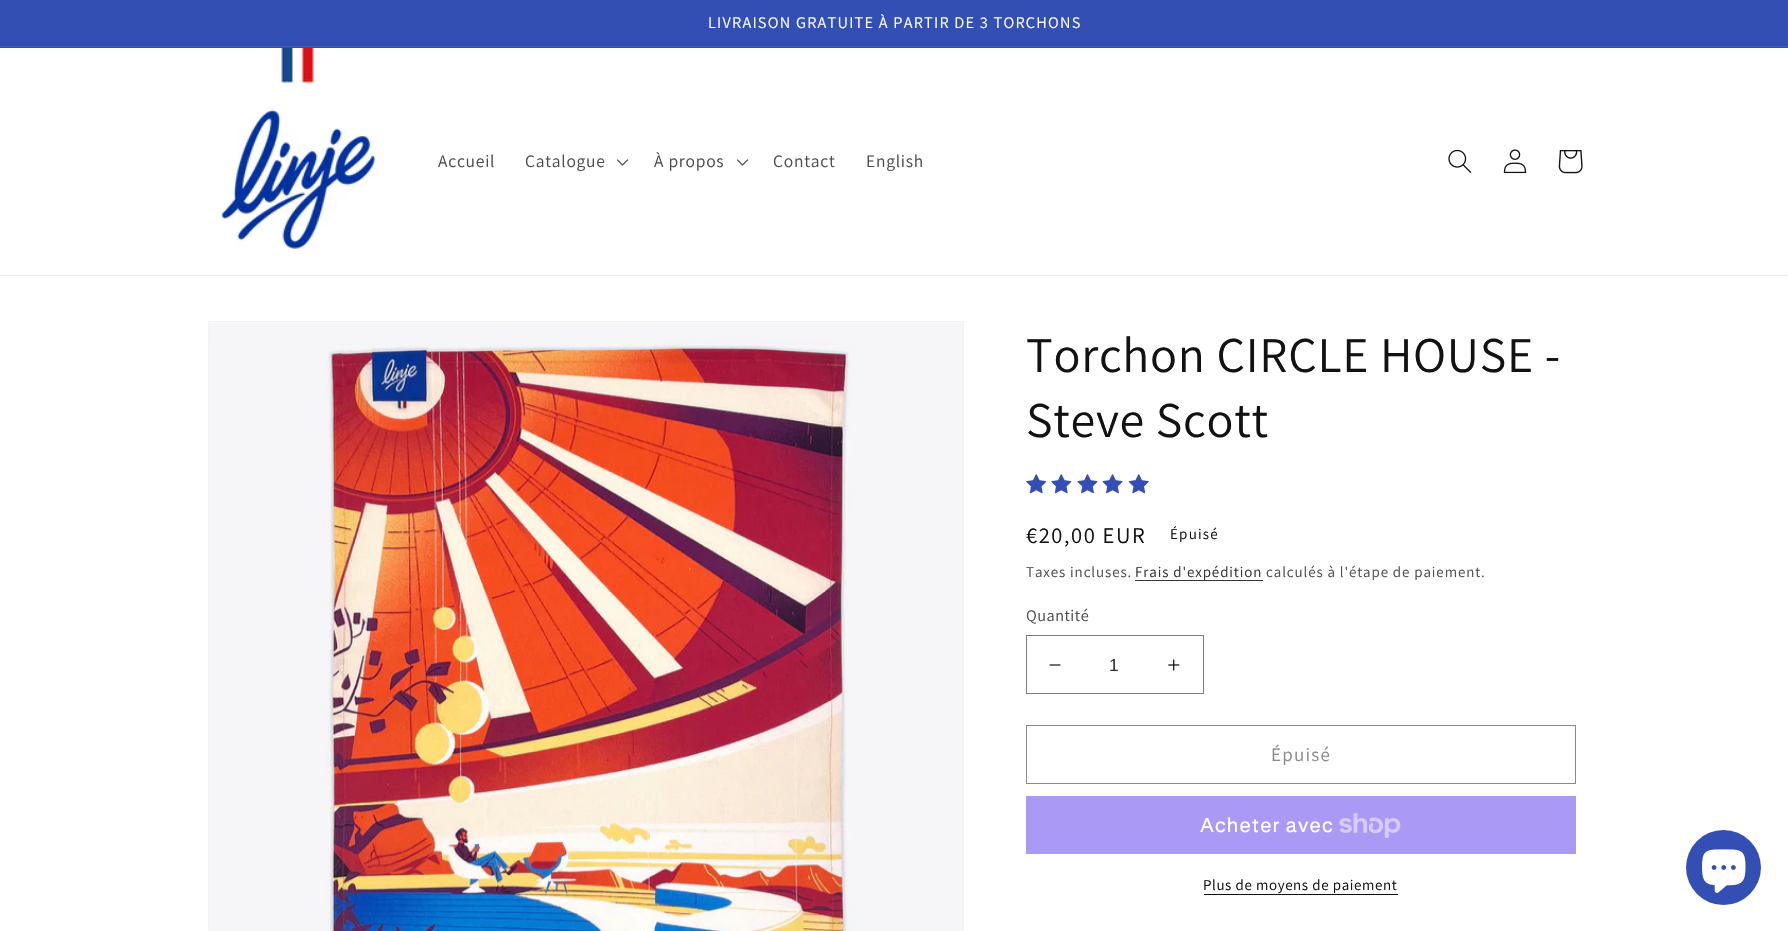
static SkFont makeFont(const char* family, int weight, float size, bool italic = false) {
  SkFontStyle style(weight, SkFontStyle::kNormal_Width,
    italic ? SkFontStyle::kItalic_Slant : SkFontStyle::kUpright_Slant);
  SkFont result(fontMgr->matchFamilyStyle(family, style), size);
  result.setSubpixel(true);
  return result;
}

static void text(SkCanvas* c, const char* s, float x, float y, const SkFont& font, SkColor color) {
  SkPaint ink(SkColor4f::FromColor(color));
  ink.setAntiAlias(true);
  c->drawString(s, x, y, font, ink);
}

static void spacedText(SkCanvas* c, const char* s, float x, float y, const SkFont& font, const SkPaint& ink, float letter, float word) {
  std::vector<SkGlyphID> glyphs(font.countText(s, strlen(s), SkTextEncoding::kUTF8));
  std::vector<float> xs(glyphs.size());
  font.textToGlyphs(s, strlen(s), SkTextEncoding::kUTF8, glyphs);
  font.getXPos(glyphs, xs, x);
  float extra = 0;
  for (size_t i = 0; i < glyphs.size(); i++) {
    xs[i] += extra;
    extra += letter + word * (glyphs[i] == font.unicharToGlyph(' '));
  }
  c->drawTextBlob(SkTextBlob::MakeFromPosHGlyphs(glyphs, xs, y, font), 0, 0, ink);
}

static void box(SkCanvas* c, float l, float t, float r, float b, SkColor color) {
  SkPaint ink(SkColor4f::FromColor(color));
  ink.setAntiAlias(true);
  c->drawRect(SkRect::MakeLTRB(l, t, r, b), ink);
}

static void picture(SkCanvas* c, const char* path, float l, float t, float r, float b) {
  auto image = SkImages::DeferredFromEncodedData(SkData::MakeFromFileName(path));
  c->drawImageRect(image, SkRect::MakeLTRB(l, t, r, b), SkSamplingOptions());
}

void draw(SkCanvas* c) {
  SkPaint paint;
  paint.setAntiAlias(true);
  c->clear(0xffffffff);
  box(c, 0, 0, 1788, 48, 0xff334fb4);
  box(c, 0, 46, 1788, 47, 0xff435dba);
  SkFont face1 = makeFont("Assistant", 400, 16.25f);
  paint.setColor(0xffffffff);
  spacedText(c, "LIVRAISON GRATUITE À PARTIR DE 3 TORCHONS", 708, 28, face1, paint, 1.25f, 0);
  box(c, 0, 275, 1788, 276, 0xffececec);
  picture(c, "img_01.png", 217, 48, 378, 252);
  SkFont face2 = makeFont("Assistant", 400, 17.5f);
  paint.setColor(0xff4d4d4d);
  spacedText(c, "Accueil", 438, 167, face2, paint, 0.75f, 0);
  spacedText(c, "Catalogue", 525, 167, face2, paint, 0.75f, 0);
  picture(c, "img_02.png", 617, 159, 628, 166);
  spacedText(c, "À propos", 654, 167, face2, paint, 0.75f, 0);
  picture(c, "img_02.png", 737, 159, 748, 166);
  spacedText(c, "Contact", 773, 167, face2, paint, 0.75f, 0);
  spacedText(c, "English", 866, 167, face2, paint, 0.75f, 0);
  picture(c, "img_03.png", 1448, 149, 1472, 173);
  picture(c, "img_04.png", 1503, 149, 1527, 174);
  picture(c, "img_05.png", 1558, 150, 1583, 174);
  paint.setStyle(SkPaint::kStroke_Style);
  paint.setStrokeWidth(1);
  paint.setColor(0xfff3f3f3);
  c->drawRect(SkRect::MakeLTRB(208.5f, 321.5f, 963.5f, 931.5f), paint);
  picture(c, "img_06.png", 209, 322, 963, 931);
  SkFont face3 = makeFont("Assistant", 400, 50);
  paint.setStyle(SkPaint::kFill_Style);
  paint.setColor(0xff121212);
  spacedText(c, "Torchon CIRCLE HOUSE -", 1026, 372, face3, paint, 0.75f, 0);
  spacedText(c, "Steve Scott", 1026, 437, face3, paint, 0.75f, 0);
  picture(c, "img_07.png", 1026, 474, 1047, 494);
  picture(c, "img_07.png", 1051, 474, 1072, 494);
  picture(c, "img_08.png", 1077, 474, 1098, 494);
  picture(c, "img_08.png", 1102, 474, 1123, 494);
  picture(c, "img_09.png", 1128, 474, 1149, 494);
  SkFont face4 = makeFont("Assistant", 400, 22.5f);
  spacedText(c, "€20,00 EUR", 1026, 543, face4, paint, 1.6f, 0);
  SkFont face5 = makeFont("Assistant", 400, 15);
  spacedText(c, "Épuisé", 1170, 539, face5, paint, 1.25f, 0);
  paint.setColor(0xff4d4d4d);
  spacedText(c, "Taxes incluses.", 1026, 577, face5, paint, 0.9f, 0);
  box(c, 1135, 580, 1263, 581, 0xff363636);
  paint.setColor(0xff353535);
  spacedText(c, "Frais d'expédition", 1135, 577, face5, paint, 0.9f, 0);
  paint.setColor(0xff4d4d4d);
  spacedText(c, "calculés à l'étape de paiement.", 1266, 577, face5, paint, 0.9f, 0);
  spacedText(c, "Quantité", 1026, 621, face1, paint, 0.5f, 0);
  picture(c, "img_10.png", 1049, 664, 1061, 666);
  picture(c, "img_11.png", 1168, 659, 1180, 671);
  paint.setStyle(SkPaint::kStroke_Style);
  paint.setColor(0xff7d7d7d);
  c->drawRect(SkRect::MakeLTRB(1026.5f, 635.5f, 1203.5f, 693.5f), paint);
  SkFont face6 = makeFont("Liberation Sans", 400, 17.5f);
  text(c, "1", 1109, 671, face6, 0xff353535);
  paint.setColor(0xff898989);
  c->drawRect(SkRect::MakeLTRB(1026.5f, 725.5f, 1575.5f, 783.5f), paint);
  SkFont face7 = makeFont("Assistant", 400, 19);
  paint.setStyle(SkPaint::kFill_Style);
  spacedText(c, "Épuisé", 1271, 761, face7, paint, 1.25f, 0);
  box(c, 1026, 796, 1576, 854, 0xffaa99f5);
  SkFont face8 = makeFont("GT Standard", 400, 20);
  paint.setColor(0xffffffff);
  spacedText(c, "Acheter avec", 1200, 832, face8, paint, 0.75f, 0);
  picture(c, "img_12.png", 1339, 813, 1401, 838);
  paint.setColor(0xff121212);
  spacedText(c, "Plus de moyens de paiement", 1203, 890, face5, paint, 0.6f, 0);
  box(c, 1204, 894, 1398, 895, 0xff121212);
  paint.setColor(0xff334fb4);
  c->drawCircle(1723.5f, 867.5f, 37.5f, paint);
  picture(c, "img_13.png", 1702, 849, 1746, 893);
}
